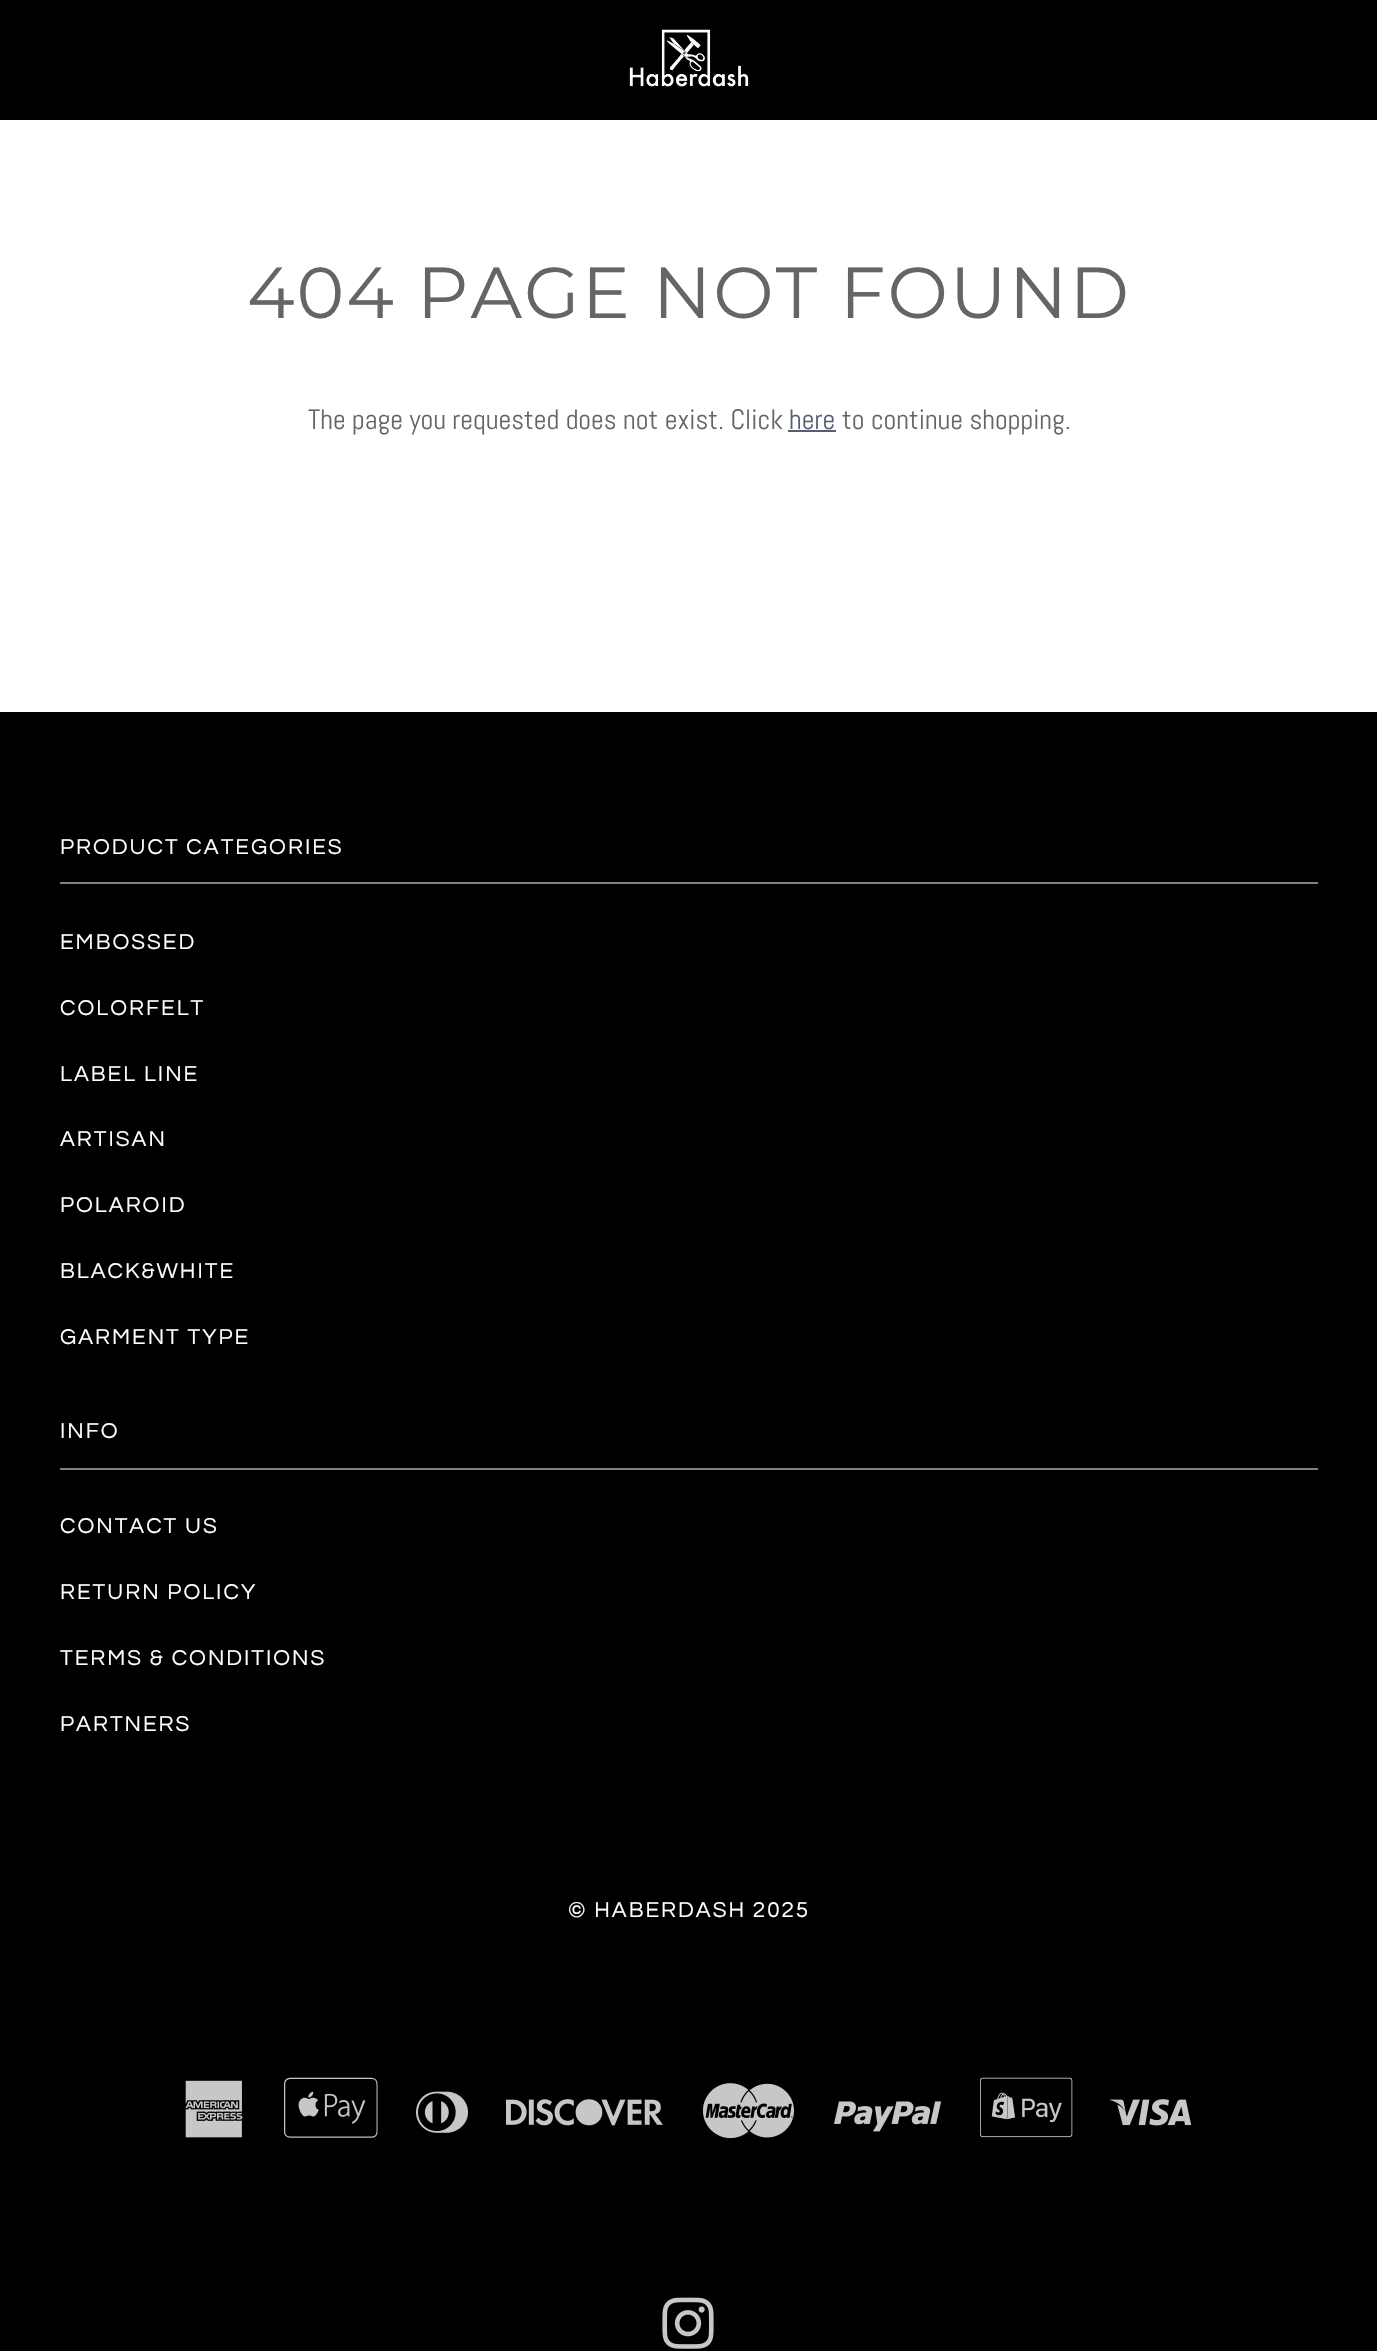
static SkFont makeFont(const char* family, int weight, float size, bool italic = false) {
  SkFontStyle style(weight, SkFontStyle::kNormal_Width,
    italic ? SkFontStyle::kItalic_Slant : SkFontStyle::kUpright_Slant);
  SkFont result(fontMgr->matchFamilyStyle(family, style), size);
  result.setSubpixel(true);
  return result;
}

static void text(SkCanvas* c, const char* s, float x, float y, const SkFont& font, SkColor color) {
  SkPaint ink(SkColor4f::FromColor(color));
  ink.setAntiAlias(true);
  c->drawString(s, x, y, font, ink);
}

static void spacedText(SkCanvas* c, const char* s, float x, float y, const SkFont& font, const SkPaint& ink, float letter, float word) {
  std::vector<SkGlyphID> glyphs(font.countText(s, strlen(s), SkTextEncoding::kUTF8));
  std::vector<float> xs(glyphs.size());
  font.textToGlyphs(s, strlen(s), SkTextEncoding::kUTF8, glyphs);
  font.getXPos(glyphs, xs, x);
  float extra = 0;
  for (size_t i = 0; i < glyphs.size(); i++) {
    xs[i] += extra;
    extra += letter + word * (glyphs[i] == font.unicharToGlyph(' '));
  }
  c->drawTextBlob(SkTextBlob::MakeFromPosHGlyphs(glyphs, xs, y, font), 0, 0, ink);
}

static void box(SkCanvas* c, float l, float t, float r, float b, SkColor color) {
  SkPaint ink(SkColor4f::FromColor(color));
  ink.setAntiAlias(true);
  c->drawRect(SkRect::MakeLTRB(l, t, r, b), ink);
}

static void picture(SkCanvas* c, const char* path, float l, float t, float r, float b) {
  auto image = SkImages::DeferredFromEncodedData(SkData::MakeFromFileName(path));
  c->drawImageRect(image, SkRect::MakeLTRB(l, t, r, b), SkSamplingOptions());
}

void draw(SkCanvas* c) {
  SkPaint paint;
  paint.setAntiAlias(true);
  c->clear(0xffffffff);
  box(c, 0, 0, 1377, 120, 0xff000000);
  picture(c, "img_01.png", 629, 29, 749, 87);
  SkFont face1 = makeFont("Montserrat", 100, 72);
  paint.setColor(0xff656565);
  spacedText(c, "404 PAGE NOT FOUND", 247, 318, face1, paint, 2, 0);
  SkFont face2 = makeFont("Abel", 400, 28);
  text(c, "The page you requested does not exist. Click", 308, 429, face2, 0xff656565);
  text(c, "here", 789, 429, face2, 0xff585e71);
  box(c, 788, 430, 836, 432, 0xff585e71);
  text(c, "to continue shopping.", 842, 429, face2, 0xff656565);
  box(c, 0, 712, 1377, 2351, 0xff000000);
  SkFont face3 = makeFont("Questrial", 400, 22.4f);
  paint.setColor(0xffffffff);
  spacedText(c, "PRODUCT CATEGORIES", 60, 854, face3, paint, 2, 0);
  box(c, 60, 882, 1318, 884, 0xff808080);
  spacedText(c, "EMBOSSED", 60, 949, face3, paint, 2, 0);
  spacedText(c, "COLORFELT", 60, 1015, face3, paint, 2, 0);
  spacedText(c, "LABEL LINE", 60, 1081, face3, paint, 2, 0);
  spacedText(c, "ARTISAN", 60, 1146, face3, paint, 2, 0);
  spacedText(c, "POLAROID", 60, 1212, face3, paint, 2, 0);
  spacedText(c, "BLACK&WHITE", 60, 1278, face3, paint, 2, 0);
  spacedText(c, "GARMENT TYPE", 60, 1344, face3, paint, 2, 0);
  spacedText(c, "INFO", 60, 1438, face3, paint, 2, 0);
  box(c, 60, 1468, 1318, 1470, 0xff808080);
  spacedText(c, "CONTACT US", 60, 1533, face3, paint, 2, 0);
  spacedText(c, "RETURN POLICY", 60, 1599, face3, paint, 2, 0);
  spacedText(c, "TERMS & CONDITIONS", 60, 1665, face3, paint, 2, 0);
  spacedText(c, "PARTNERS", 60, 1731, face3, paint, 2, 0);
  spacedText(c, "© HABERDASH 2025", 568, 1917, face3, paint, 2, 0);
  picture(c, "img_02.png", 185, 2080, 243, 2138);
  picture(c, "img_03.png", 284, 2077, 378, 2138);
  picture(c, "img_04.png", 416, 2091, 468, 2133);
  picture(c, "img_05.png", 506, 2099, 663, 2126);
  picture(c, "img_06.png", 702, 2083, 794, 2139);
  picture(c, "img_07.png", 834, 2101, 942, 2132);
  picture(c, "img_08.png", 980, 2077, 1073, 2138);
  picture(c, "img_09.png", 1110, 2099, 1192, 2126);
  picture(c, "img_10.png", 662, 2297, 714, 2349);
}
